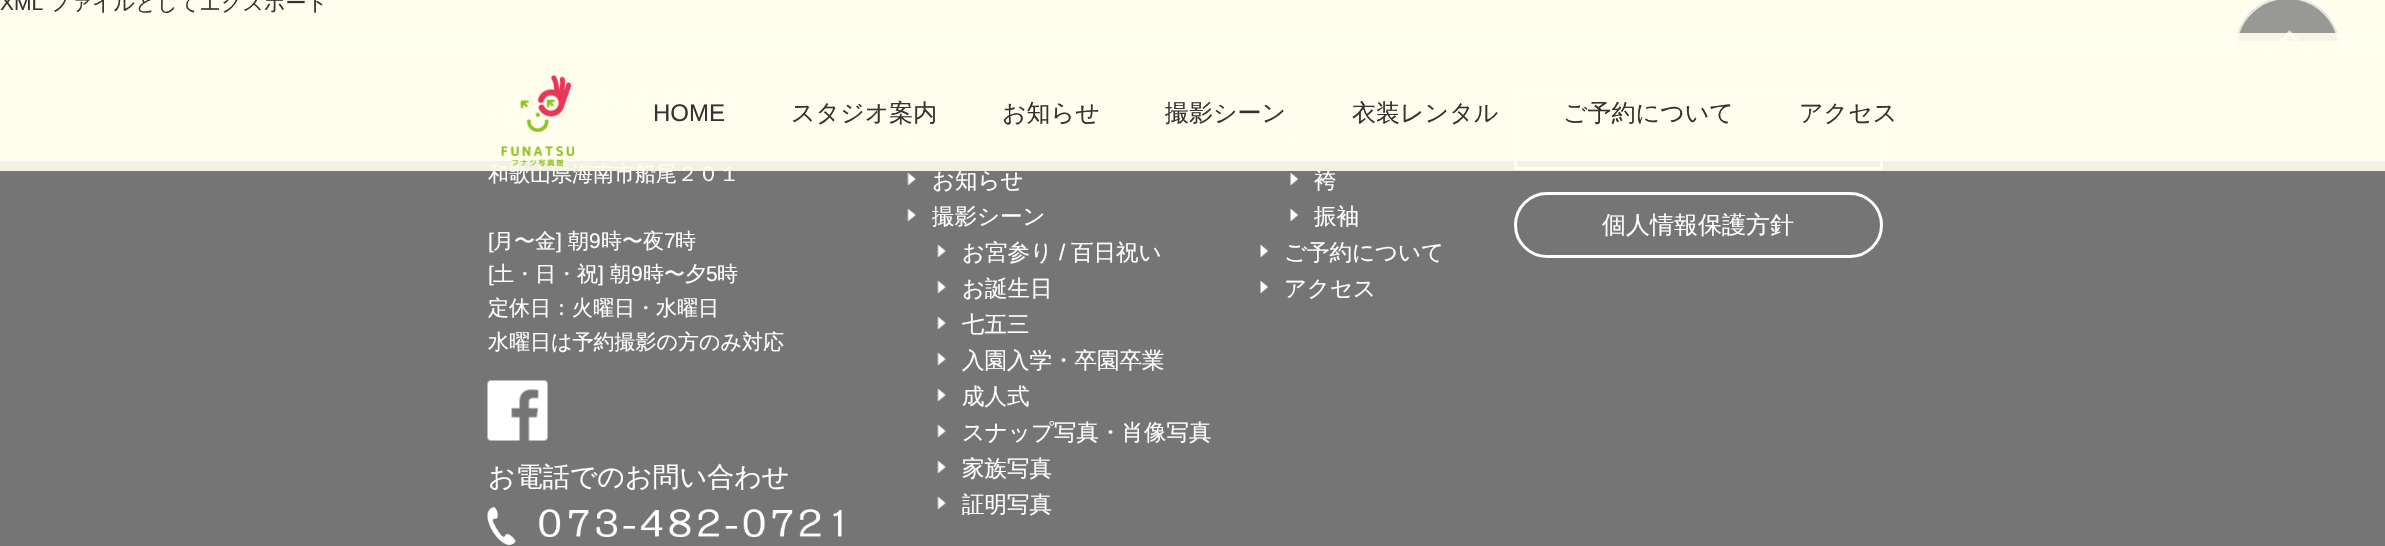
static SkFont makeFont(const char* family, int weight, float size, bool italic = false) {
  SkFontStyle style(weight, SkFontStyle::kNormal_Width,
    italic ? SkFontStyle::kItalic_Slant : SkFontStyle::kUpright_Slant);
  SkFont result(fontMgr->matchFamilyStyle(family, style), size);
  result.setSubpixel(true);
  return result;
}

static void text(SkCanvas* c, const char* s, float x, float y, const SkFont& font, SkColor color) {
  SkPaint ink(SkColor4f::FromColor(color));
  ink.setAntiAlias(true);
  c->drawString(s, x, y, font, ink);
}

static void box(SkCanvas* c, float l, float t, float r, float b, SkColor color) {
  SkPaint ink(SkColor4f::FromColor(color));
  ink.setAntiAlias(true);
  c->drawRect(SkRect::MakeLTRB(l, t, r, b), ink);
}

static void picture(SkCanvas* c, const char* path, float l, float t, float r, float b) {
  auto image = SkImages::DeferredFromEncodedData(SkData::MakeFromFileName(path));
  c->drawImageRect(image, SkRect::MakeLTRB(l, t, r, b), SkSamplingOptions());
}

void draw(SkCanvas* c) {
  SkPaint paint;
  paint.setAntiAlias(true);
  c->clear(0xfffffeee);
  SkFont face1 = makeFont("Liberation Sans", 400, 21);
  text(c, "XML", 0, 10, face1, 0xff333333);
  SkFont face2 = makeFont("WenQuanYi Zen Hei", 500, 21);
  text(c, "ファイルとしてエクスポート", 49, 10, face2, 0xff333333);
  box(c, 0, 53, 2385, 546, 0xff757575);
  paint.setColor(0xbf757575);
  c->drawCircle(2287.5f, 49.5f, 52.5f, paint);
  paint.setStyle(SkPaint::kStroke_Style);
  paint.setStrokeWidth(2);
  paint.setColor(0xbfffffff);
  c->drawCircle(2287.5f, 49.5f, 51.5f, paint);
  picture(c, "img_02.png", 2259, 30, 2317, 64);
  picture(c, "img_03.png", 487, 89, 734, 141);
  picture(c, "img_06.png", 907, 100, 916, 114);
  picture(c, "img_06.png", 907, 136, 916, 150);
  picture(c, "img_07.png", 1260, 100, 1268, 114);
  picture(c, "img_08.png", 1290, 136, 1298, 150);
  paint.setStrokeWidth(3);
  paint.setColor(0xffffffff);
  c->drawRect(SkRect::MakeLTRB(1515.5f, 91.5f, 1881.5f, 168.5f), paint);
  picture(c, "img_09.png", 1579, 110, 1617, 147);
  box(c, 0, 33, 2385, 161, 0xe6fffeee);
  text(c, "和歌山県海南市船尾２０１", 488, 181, face2, 0xffffffff);
  SkFont face3 = makeFont("WenQuanYi Zen Hei", 500, 22.5f);
  text(c, "お知らせ", 932, 188, face3, 0xffffffff);
  text(c, "袴", 1314, 188, face3, 0xffffffff);
  box(c, 0, 41, 2385, 171, 0xe6fffeee);
  picture(c, "img_01.png", 501, 74, 574, 166);
  SkFont face4 = makeFont("Liberation Sans", 400, 24);
  text(c, "HOME", 653, 121, face4, 0xff333333);
  SkFont face5 = makeFont("WenQuanYi Zen Hei", 500, 24);
  text(c, "スタジオ案内", 791, 121, face5, 0xff333333);
  text(c, "お知らせ", 1002, 121, face5, 0xff333333);
  text(c, "撮影シーン", 1165, 121, face5, 0xff333333);
  text(c, "衣装レンタル", 1352, 121, face5, 0xff333333);
  text(c, "ご予約について", 1563, 121, face5, 0xff333333);
  text(c, "アクセス", 1799, 121, face5, 0xff333333);
  text(c, "[", 488, 248, face1, 0xffffffff);
  text(c, "月〜金", 493, 248, face2, 0xffffffff);
  text(c, "]", 556, 248, face1, 0xffffffff);
  text(c, "朝", 568, 248, face2, 0xffffffff);
  text(c, "9", 589, 248, face1, 0xffffffff);
  text(c, "時〜夜", 601, 248, face2, 0xffffffff);
  text(c, "7", 664, 248, face1, 0xffffffff);
  text(c, "時", 675, 248, face2, 0xffffffff);
  text(c, "[", 488, 281, face1, 0xffffffff);
  text(c, "土・日・祝", 493, 281, face2, 0xffffffff);
  text(c, "]", 598, 281, face1, 0xffffffff);
  text(c, "朝", 610, 281, face2, 0xffffffff);
  text(c, "9", 631, 281, face1, 0xffffffff);
  text(c, "時〜夕", 643, 281, face2, 0xffffffff);
  text(c, "5", 706, 281, face1, 0xffffffff);
  text(c, "時", 717, 281, face2, 0xffffffff);
  text(c, "定休日：火曜日・水曜日", 488, 315, face2, 0xffffffff);
  text(c, "水曜日は予約撮影の方のみ対応", 488, 349, face2, 0xffffffff);
  picture(c, "img_04.png", 487, 380, 548, 441);
  SkFont face6 = makeFont("WenQuanYi Zen Hei", 500, 27);
  text(c, "お電話でのお問い合わせ", 488, 486, face6, 0xffffffff);
  picture(c, "img_05.png", 487, 507, 842, 545);
  picture(c, "img_06.png", 907, 172, 916, 186);
  picture(c, "img_06.png", 907, 208, 916, 222);
  text(c, "撮影シーン", 932, 224, face3, 0xffffffff);
  picture(c, "img_06.png", 937, 244, 946, 258);
  text(c, "お宮参り", 962, 260, face3, 0xffffffff);
  SkFont face7 = makeFont("Liberation Sans", 400, 22.5f);
  text(c, "/", 1059, 260, face7, 0xffffffff);
  text(c, "百日祝い", 1071, 260, face3, 0xffffffff);
  picture(c, "img_06.png", 937, 280, 946, 294);
  text(c, "お誕生日", 962, 296, face3, 0xffffffff);
  picture(c, "img_06.png", 937, 316, 946, 330);
  text(c, "七五三", 962, 332, face3, 0xffffffff);
  picture(c, "img_06.png", 937, 352, 946, 366);
  text(c, "入園入学・卒園卒業", 962, 368, face3, 0xffffffff);
  picture(c, "img_06.png", 937, 388, 946, 402);
  text(c, "成人式", 962, 404, face3, 0xffffffff);
  picture(c, "img_06.png", 937, 424, 946, 438);
  text(c, "スナップ写真・肖像写真", 962, 440, face3, 0xffffffff);
  picture(c, "img_06.png", 937, 460, 946, 474);
  text(c, "家族写真", 962, 476, face3, 0xffffffff);
  picture(c, "img_06.png", 937, 496, 946, 510);
  text(c, "証明写真", 962, 512, face3, 0xffffffff);
  picture(c, "img_08.png", 1290, 172, 1298, 186);
  picture(c, "img_08.png", 1290, 208, 1298, 222);
  text(c, "振袖", 1314, 224, face3, 0xffffffff);
  picture(c, "img_07.png", 1260, 244, 1268, 258);
  text(c, "ご予約について", 1284, 260, face3, 0xffffffff);
  picture(c, "img_07.png", 1260, 280, 1268, 294);
  text(c, "アクセス", 1284, 296, face3, 0xffffffff);
  c->drawRoundRect(SkRect::MakeLTRB(1515.5f, 193.5f, 1881.5f, 256.5f), 31.5f, 31.5f, paint);
  text(c, "個人情報保護方針", 1602, 233, face5, 0xffffffff);
}
